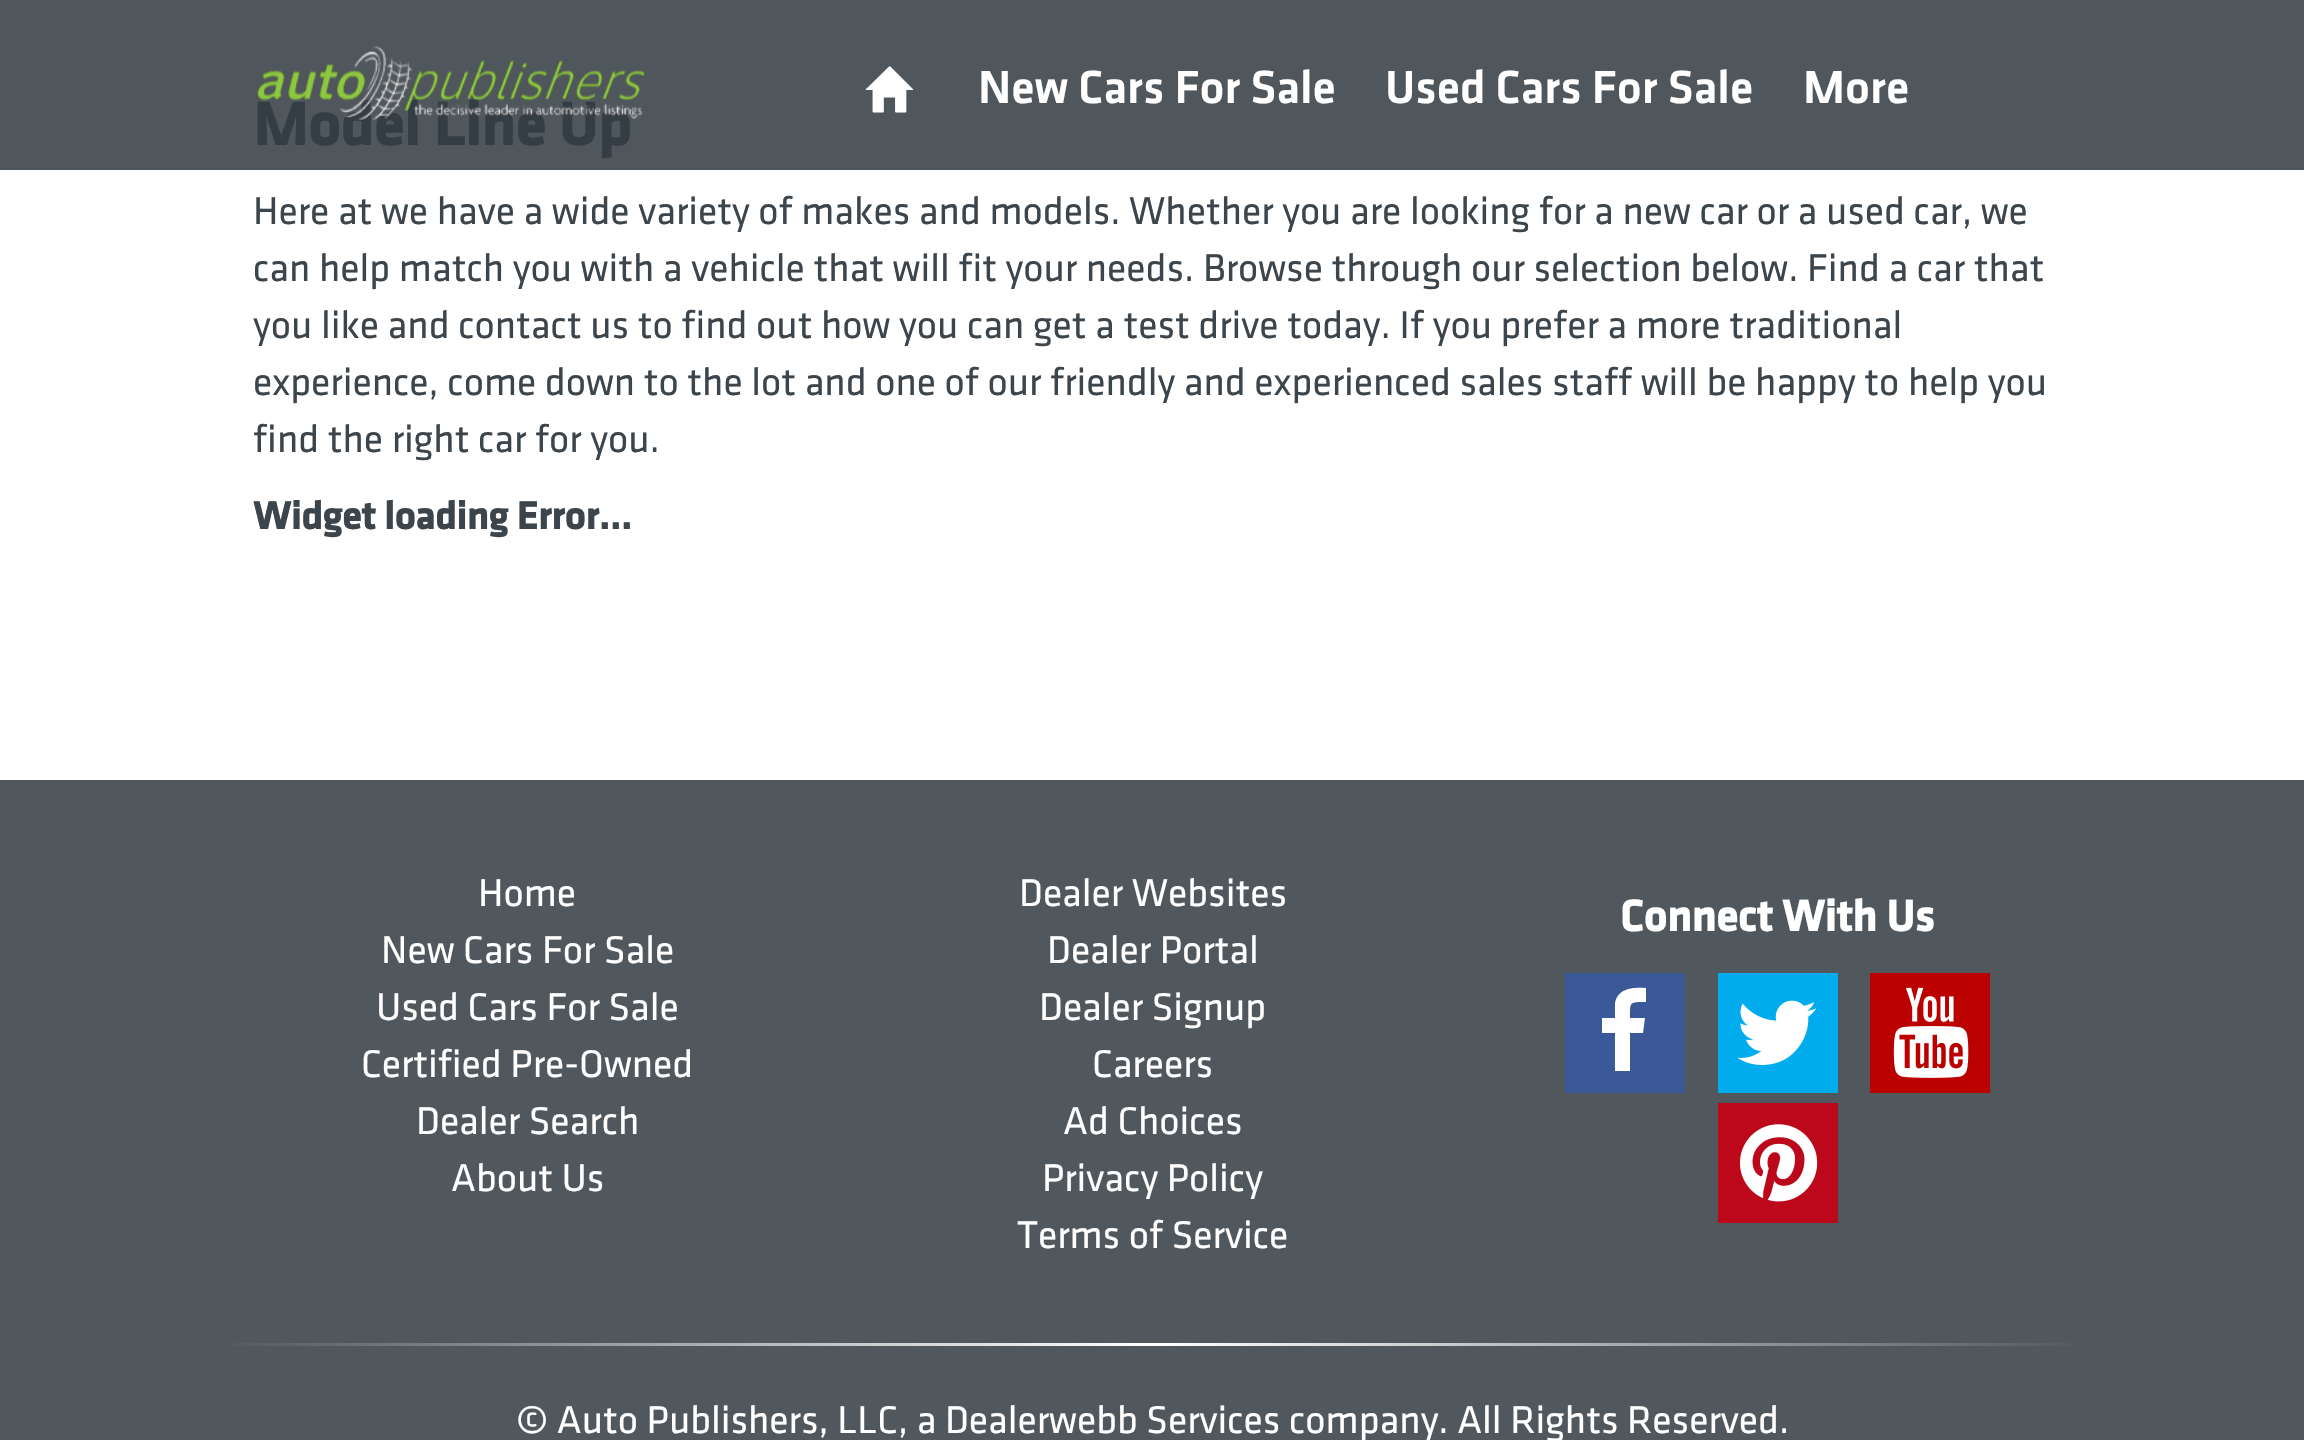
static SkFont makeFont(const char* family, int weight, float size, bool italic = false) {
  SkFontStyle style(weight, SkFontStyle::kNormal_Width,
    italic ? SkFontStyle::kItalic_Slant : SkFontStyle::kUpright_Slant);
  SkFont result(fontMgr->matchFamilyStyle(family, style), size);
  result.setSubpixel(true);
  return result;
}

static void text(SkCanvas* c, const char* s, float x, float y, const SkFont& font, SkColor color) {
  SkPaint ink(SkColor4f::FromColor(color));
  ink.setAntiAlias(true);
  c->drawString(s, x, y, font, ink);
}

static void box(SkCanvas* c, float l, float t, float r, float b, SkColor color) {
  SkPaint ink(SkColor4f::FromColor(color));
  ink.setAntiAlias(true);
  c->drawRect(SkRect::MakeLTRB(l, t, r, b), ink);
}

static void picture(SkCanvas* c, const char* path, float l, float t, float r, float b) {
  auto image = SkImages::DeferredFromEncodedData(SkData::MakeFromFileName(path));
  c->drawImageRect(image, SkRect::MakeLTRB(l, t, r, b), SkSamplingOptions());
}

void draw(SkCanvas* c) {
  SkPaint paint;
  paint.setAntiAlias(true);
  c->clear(0xffffffff);
  box(c, 0, 0, 2304, 170, 0xff4f575d);
  SkFont face1 = makeFont("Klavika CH", 700, 62.5f);
  text(c, "Model Line Up", 253, 145, face1, 0xff353d44);
  picture(c, "img_01.png", 257, 46, 645, 120);
  picture(c, "img_02.png", 865, 66, 914, 113);
  SkFont face2 = makeFont("Klavika CH", 500, 48);
  text(c, "New Cars For Sale", 978, 103, face2, 0xffffffff);
  text(c, "Used Cars For Sale", 1385, 103, face2, 0xffffffff);
  text(c, "More", 1803, 103, face2, 0xffffffff);
  SkFont face3 = makeFont("Klavika CH", 400, 40);
  text(c, "Here at we have a wide variety of makes and models. Whether you are looking for a new car or a used car, we", 253, 224, face3, 0xff3c454b);
  text(c, "can help match you with a vehicle that will fit your needs. Browse through our selection below. Find a car that", 253, 281, face3, 0xff3c454b);
  text(c, "you like and contact us to find out how you can get a test drive today. If you prefer a more traditional", 253, 338, face3, 0xff3c454b);
  text(c, "experience, come down to the lot and one of our friendly and experienced sales staff will be happy to help you", 253, 395, face3, 0xff3c454b);
  text(c, "find the right car for you.", 253, 452, face3, 0xff3c454b);
  SkFont face4 = makeFont("Klavika CH", 700, 40);
  text(c, "Widget loading Error...", 253, 529, face4, 0xff3c454b);
  box(c, 0, 780, 2304, 1440, 0xff50585d);
  text(c, "Home", 478, 906, face3, 0xffffffff);
  text(c, "New Cars For Sale", 381, 963, face3, 0xffffffff);
  text(c, "Used Cars For Sale", 376, 1020, face3, 0xffffffff);
  text(c, "Certified Pre-Owned", 361, 1077, face3, 0xffffffff);
  text(c, "Dealer Search", 416, 1134, face3, 0xffffffff);
  text(c, "About Us", 451, 1191, face3, 0xffffffff);
  text(c, "Dealer Websites", 1019, 906, face3, 0xffffffff);
  text(c, "Dealer Portal", 1047, 963, face3, 0xffffffff);
  text(c, "Dealer Signup", 1039, 1020, face3, 0xffffffff);
  text(c, "Careers", 1092, 1077, face3, 0xffffffff);
  text(c, "Ad Choices", 1063, 1134, face3, 0xffffffff);
  text(c, "Privacy Policy", 1042, 1191, face3, 0xffffffff);
  text(c, "Terms of Service", 1017, 1248, face3, 0xffffffff);
  SkFont face5 = makeFont("Klavika CH", 700, 45);
  text(c, "Connect With Us", 1620, 931, face5, 0xffffffff);
  box(c, 1565, 973, 1685, 1093, 0xff3b5998);
  paint.setColor(0xffffffff);
  c->drawPath(SkPathBuilder().moveTo(1646, 988).lineTo(1646, 1002).cubicTo(1629, 1002, 1630, 1002, 1630, 1018).lineTo(1645, 1018).lineTo(1643, 1033).lineTo(1630, 1033).lineTo(1630, 1071).lineTo(1615, 1071).lineTo(1615, 1033).lineTo(1602, 1033).lineTo(1602, 1018).lineTo(1615, 1018).lineTo(1615, 1003).cubicTo(1618, 988, 1633, 987, 1646, 988).close().detach(), paint);
  box(c, 1718, 973, 1838, 1093, 0xff00aced);
  picture(c, "img_03.png", 1737, 1000, 1817, 1065);
  box(c, 1870, 973, 1990, 1093, 0xffbb0000);
  picture(c, "img_04.png", 1893, 987, 1969, 1078);
  box(c, 1718, 1103, 1838, 1223, 0xffbd081c);
  picture(c, "img_05.png", 1740, 1124, 1818, 1202);
  {
    const SkColor colors[] = {0xff50585d, 0xffffffff, 0xff50585d};
    const float stops[] = {0, 0.5f, 1};
    const SkPoint ends[] = {{215, 1344}, {2090, 1344}};
    paint.setShader(SkGradientShader::MakeLinear(ends, colors, stops, 3, SkTileMode::kClamp));
    paint.setAlpha(255);
  }
  c->drawRect(SkRect::MakeLTRB(228, 1343, 2077, 1346), paint);
  text(c, "© Auto Publishers, LLC, a Dealerwebb Services company. All Rights Reserved.", 516, 1433, face3, 0xffffffff);
}
